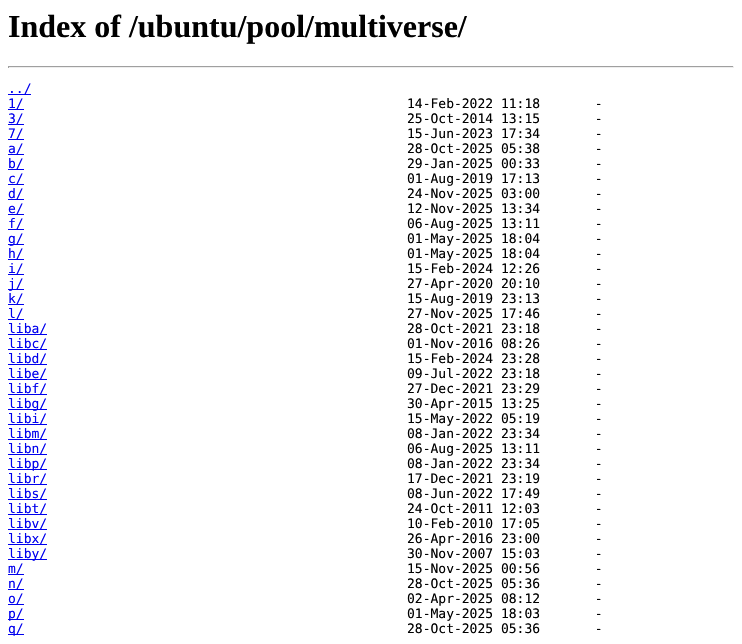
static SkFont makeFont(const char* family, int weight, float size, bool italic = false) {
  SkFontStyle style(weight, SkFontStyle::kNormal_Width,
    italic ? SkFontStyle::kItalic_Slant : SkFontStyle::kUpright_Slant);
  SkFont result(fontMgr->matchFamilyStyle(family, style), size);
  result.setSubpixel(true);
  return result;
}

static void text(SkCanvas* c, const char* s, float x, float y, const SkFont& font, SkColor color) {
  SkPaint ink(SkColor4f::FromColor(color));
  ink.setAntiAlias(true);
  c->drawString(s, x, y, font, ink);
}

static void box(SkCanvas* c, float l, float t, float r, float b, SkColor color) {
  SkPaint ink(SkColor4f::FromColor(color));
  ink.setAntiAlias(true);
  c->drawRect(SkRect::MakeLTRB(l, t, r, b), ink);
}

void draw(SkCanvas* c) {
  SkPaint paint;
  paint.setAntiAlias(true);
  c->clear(0xffffffff);
  SkFont face1 = makeFont("Liberation Serif", 700, 32);
  text(c, "Index of /ubuntu/pool/multiverse/", 8, 37, face1, 0xff000000);
  box(c, 8, 66, 734, 67, 0xff9f9f9f);
  box(c, 733, 66, 734, 68, 0xffeeeeee);
  box(c, 8, 67, 734, 68, 0xffeeeeee);
  box(c, 8, 66, 9, 68, 0xff9f9f9f);
  box(c, 8, 94, 31, 95, 0xff0000ee);
  SkFont face2 = makeFont("DejaVu Sans Mono", 400, 13);
  text(c, "../", 8, 93, face2, 0xff0000ee);
  box(c, 8, 109, 24, 110, 0xff0000ee);
  text(c, "1/", 8, 108, face2, 0xff0000ee);
  text(c, "14-Feb-2022 11:18       -", 407, 108, face2, 0xff000000);
  box(c, 8, 124, 24, 125, 0xff0000ee);
  text(c, "3/", 8, 123, face2, 0xff0000ee);
  text(c, "25-Oct-2014 13:15       -", 407, 123, face2, 0xff000000);
  box(c, 8, 139, 24, 140, 0xff0000ee);
  text(c, "7/", 8, 138, face2, 0xff0000ee);
  text(c, "15-Jun-2023 17:34       -", 407, 138, face2, 0xff000000);
  box(c, 8, 154, 24, 155, 0xff0000ee);
  text(c, "a/", 8, 153, face2, 0xff0000ee);
  text(c, "28-Oct-2025 05:38       -", 407, 153, face2, 0xff000000);
  box(c, 8, 169, 24, 170, 0xff0000ee);
  text(c, "b/", 8, 168, face2, 0xff0000ee);
  text(c, "29-Jan-2025 00:33       -", 407, 168, face2, 0xff000000);
  box(c, 8, 184, 24, 185, 0xff0000ee);
  text(c, "c/", 8, 183, face2, 0xff0000ee);
  text(c, "01-Aug-2019 17:13       -", 407, 183, face2, 0xff000000);
  box(c, 8, 199, 24, 200, 0xff0000ee);
  text(c, "d/", 8, 198, face2, 0xff0000ee);
  text(c, "24-Nov-2025 03:00       -", 407, 198, face2, 0xff000000);
  box(c, 8, 214, 24, 215, 0xff0000ee);
  text(c, "e/", 8, 213, face2, 0xff0000ee);
  text(c, "12-Nov-2025 13:34       -", 407, 213, face2, 0xff000000);
  box(c, 8, 229, 24, 230, 0xff0000ee);
  text(c, "f/", 8, 228, face2, 0xff0000ee);
  text(c, "06-Aug-2025 13:11       -", 407, 228, face2, 0xff000000);
  box(c, 8, 244, 24, 245, 0xff0000ee);
  text(c, "g/", 8, 243, face2, 0xff0000ee);
  text(c, "01-May-2025 18:04       -", 407, 243, face2, 0xff000000);
  box(c, 8, 259, 24, 260, 0xff0000ee);
  text(c, "h/", 8, 258, face2, 0xff0000ee);
  text(c, "01-May-2025 18:04       -", 407, 258, face2, 0xff000000);
  box(c, 8, 274, 24, 275, 0xff0000ee);
  text(c, "i/", 8, 273, face2, 0xff0000ee);
  text(c, "15-Feb-2024 12:26       -", 407, 273, face2, 0xff000000);
  box(c, 8, 289, 24, 290, 0xff0000ee);
  text(c, "j/", 8, 288, face2, 0xff0000ee);
  text(c, "27-Apr-2020 20:10       -", 407, 288, face2, 0xff000000);
  box(c, 8, 304, 24, 305, 0xff0000ee);
  text(c, "k/", 8, 303, face2, 0xff0000ee);
  text(c, "15-Aug-2019 23:13       -", 407, 303, face2, 0xff000000);
  box(c, 8, 319, 24, 320, 0xff0000ee);
  text(c, "l/", 8, 318, face2, 0xff0000ee);
  text(c, "27-Nov-2025 17:46       -", 407, 318, face2, 0xff000000);
  box(c, 8, 334, 47, 335, 0xff0000ee);
  text(c, "liba/", 8, 333, face2, 0xff0000ee);
  text(c, "28-Oct-2021 23:18       -", 407, 333, face2, 0xff000000);
  box(c, 8, 349, 47, 350, 0xff0000ee);
  text(c, "libc/", 8, 348, face2, 0xff0000ee);
  text(c, "01-Nov-2016 08:26       -", 407, 348, face2, 0xff000000);
  box(c, 8, 364, 47, 365, 0xff0000ee);
  text(c, "libd/", 8, 363, face2, 0xff0000ee);
  text(c, "15-Feb-2024 23:28       -", 407, 363, face2, 0xff000000);
  box(c, 8, 379, 47, 380, 0xff0000ee);
  text(c, "libe/", 8, 378, face2, 0xff0000ee);
  text(c, "09-Jul-2022 23:18       -", 407, 378, face2, 0xff000000);
  box(c, 8, 394, 47, 395, 0xff0000ee);
  text(c, "libf/", 8, 393, face2, 0xff0000ee);
  text(c, "27-Dec-2021 23:29       -", 407, 393, face2, 0xff000000);
  box(c, 8, 409, 47, 410, 0xff0000ee);
  text(c, "libg/", 8, 408, face2, 0xff0000ee);
  text(c, "30-Apr-2015 13:25       -", 407, 408, face2, 0xff000000);
  box(c, 8, 424, 47, 425, 0xff0000ee);
  text(c, "libi/", 8, 423, face2, 0xff0000ee);
  text(c, "15-May-2022 05:19       -", 407, 423, face2, 0xff000000);
  box(c, 8, 439, 47, 440, 0xff0000ee);
  text(c, "libm/", 8, 438, face2, 0xff0000ee);
  text(c, "08-Jan-2022 23:34       -", 407, 438, face2, 0xff000000);
  box(c, 8, 454, 47, 455, 0xff0000ee);
  text(c, "libn/", 8, 453, face2, 0xff0000ee);
  text(c, "06-Aug-2025 13:11       -", 407, 453, face2, 0xff000000);
  box(c, 8, 469, 47, 470, 0xff0000ee);
  text(c, "libp/", 8, 468, face2, 0xff0000ee);
  text(c, "08-Jan-2022 23:34       -", 407, 468, face2, 0xff000000);
  box(c, 8, 484, 47, 485, 0xff0000ee);
  text(c, "libr/", 8, 483, face2, 0xff0000ee);
  text(c, "17-Dec-2021 23:19       -", 407, 483, face2, 0xff000000);
  box(c, 8, 499, 47, 500, 0xff0000ee);
  text(c, "libs/", 8, 498, face2, 0xff0000ee);
  text(c, "08-Jun-2022 17:49       -", 407, 498, face2, 0xff000000);
  box(c, 8, 514, 47, 515, 0xff0000ee);
  text(c, "libt/", 8, 513, face2, 0xff0000ee);
  text(c, "24-Oct-2011 12:03       -", 407, 513, face2, 0xff000000);
  box(c, 8, 529, 47, 530, 0xff0000ee);
  text(c, "libv/", 8, 528, face2, 0xff0000ee);
  text(c, "10-Feb-2010 17:05       -", 407, 528, face2, 0xff000000);
  box(c, 8, 544, 47, 545, 0xff0000ee);
  text(c, "libx/", 8, 543, face2, 0xff0000ee);
  text(c, "26-Apr-2016 23:00       -", 407, 543, face2, 0xff000000);
  box(c, 8, 559, 47, 560, 0xff0000ee);
  text(c, "liby/", 8, 558, face2, 0xff0000ee);
  text(c, "30-Nov-2007 15:03       -", 407, 558, face2, 0xff000000);
  box(c, 8, 574, 24, 575, 0xff0000ee);
  text(c, "m/", 8, 573, face2, 0xff0000ee);
  text(c, "15-Nov-2025 00:56       -", 407, 573, face2, 0xff000000);
  box(c, 8, 589, 24, 590, 0xff0000ee);
  text(c, "n/", 8, 588, face2, 0xff0000ee);
  text(c, "28-Oct-2025 05:36       -", 407, 588, face2, 0xff000000);
  box(c, 8, 604, 24, 605, 0xff0000ee);
  text(c, "o/", 8, 603, face2, 0xff0000ee);
  text(c, "02-Apr-2025 08:12       -", 407, 603, face2, 0xff000000);
  box(c, 8, 619, 24, 620, 0xff0000ee);
  text(c, "p/", 8, 618, face2, 0xff0000ee);
  text(c, "01-May-2025 18:03       -", 407, 618, face2, 0xff000000);
  box(c, 8, 634, 24, 635, 0xff0000ee);
  text(c, "q/", 8, 633, face2, 0xff0000ee);
  text(c, "28-Oct-2025 05:36       -", 407, 633, face2, 0xff000000);
}
